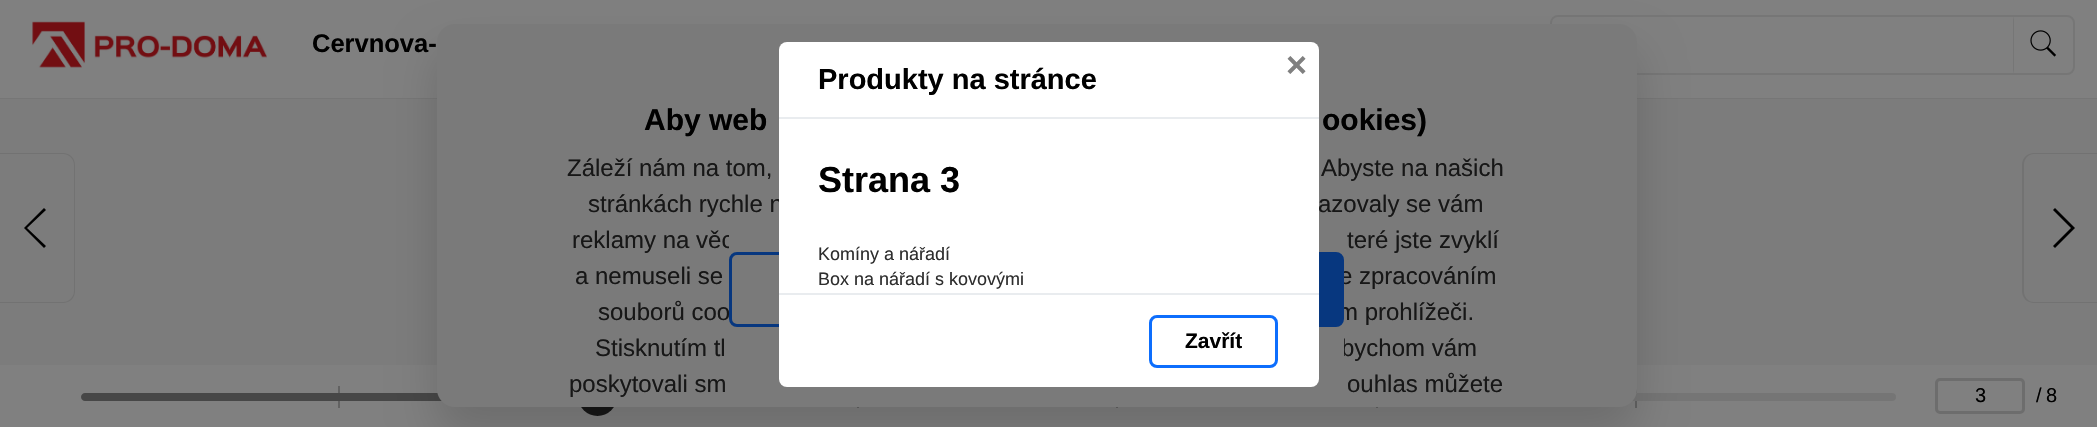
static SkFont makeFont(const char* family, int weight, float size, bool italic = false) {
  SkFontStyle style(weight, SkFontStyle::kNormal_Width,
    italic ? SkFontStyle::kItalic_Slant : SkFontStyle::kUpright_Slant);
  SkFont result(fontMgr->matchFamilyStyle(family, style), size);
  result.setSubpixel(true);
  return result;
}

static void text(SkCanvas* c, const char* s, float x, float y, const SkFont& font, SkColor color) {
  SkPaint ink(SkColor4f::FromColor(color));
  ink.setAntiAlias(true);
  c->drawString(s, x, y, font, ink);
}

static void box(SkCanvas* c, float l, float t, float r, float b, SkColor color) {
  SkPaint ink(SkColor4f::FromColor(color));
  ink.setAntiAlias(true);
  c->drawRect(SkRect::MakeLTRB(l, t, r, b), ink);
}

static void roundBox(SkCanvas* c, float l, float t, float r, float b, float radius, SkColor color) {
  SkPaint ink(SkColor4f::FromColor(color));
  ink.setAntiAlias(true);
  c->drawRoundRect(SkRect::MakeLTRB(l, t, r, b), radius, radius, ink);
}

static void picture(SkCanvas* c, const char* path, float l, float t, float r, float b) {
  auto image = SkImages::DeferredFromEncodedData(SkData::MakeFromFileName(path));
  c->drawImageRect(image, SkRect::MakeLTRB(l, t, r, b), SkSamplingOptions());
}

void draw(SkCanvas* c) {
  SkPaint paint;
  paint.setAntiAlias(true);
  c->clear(0xff7c7c7c);
  box(c, 0, 0, 2097, 99, 0xff808080);
  box(c, 0, 98, 2097, 99, 0x14000000);
  picture(c, "img_01.png", 32, 21, 267, 68);
  SkFont face1 = makeFont("Liberation Sans", 700, 25.5f);
  text(c, "Cervnova-", 312, 52, face1, 0xff000000);
  paint.setStyle(SkPaint::kStroke_Style);
  paint.setStrokeWidth(2);
  paint.setColor(0xff767676);
  c->drawRoundRect(SkRect::MakeLTRB(1551, 16, 2074, 74), 7, 7, paint);
  paint.setStyle(SkPaint::kFill_Style);
  c->drawPath(SkPathBuilder().moveTo(2013, 74).lineTo(2013, 16).lineTo(2014, 20).lineTo(2014, 70).close().detach(), paint);
  picture(c, "img_02.png", 2030, 30, 2056, 57);
  box(c, 0, 365, 2097, 427, 0xff808080);
  box(c, 338, 386, 340, 408, 0xff626262);
  box(c, 1635, 386, 1637, 408, 0xff626262);
  roundBox(c, 81, 393, 1896, 401, 4, 0xff757575);
  paint.setColor(0xff474747);
  c->drawPath(SkPathBuilder().moveTo(85, 393).lineTo(599, 393).lineTo(599, 401).lineTo(85, 401).cubicTo(83, 401, 81, 399, 81, 397).cubicTo(81, 395, 83, 393, 85, 393).close().detach(), paint);
  paint.setColor(0xff171717);
  c->drawCircle(597.5f, 396.5f, 19.5f, paint);
  box(c, 857, 407, 859, 408, 0xff626262);
  box(c, 1116, 407, 1118, 408, 0xff626262);
  box(c, 1376, 407, 1378, 408, 0xff626262);
  paint.setColor(0x26000000);
  paint.setMaskFilter(SkMaskFilter::MakeBlur(kNormal_SkBlurStyle, 22.5f));
  c->drawRoundRect(SkRect::MakeLTRB(437, 51, 1637, 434), 18, 18, paint);
  paint.setMaskFilter(nullptr);
  roundBox(c, 437, 24, 1637, 407, 18, 0xff7a7a7a);
  SkFont face2 = makeFont("Liberation Sans", 400, 24);
  text(c, "stránkách rychle n", 588, 212, face2, 0xff171717);
  text(c, "azovaly se vám", 1318, 212, face2, 0xff171717);
  text(c, "reklamy na věc", 572, 248, face2, 0xff171717);
  text(c, "e zpracováním", 1339, 284, face2, 0xff171717);
  text(c, "m prohlížeči.", 1338, 320, face2, 0xff171717);
  text(c, "bychom vám", 1341, 356, face2, 0xff171717);
  box(c, 729, 235, 1344, 356, 0xff7a7a7a);
  paint.setStyle(SkPaint::kStroke_Style);
  paint.setStrokeWidth(3);
  paint.setColor(0xff07377f);
  c->drawRoundRect(SkRect::MakeLTRB(730.5f, 253.5f, 1063.5f, 325.5f), 6.5f, 6.5f, paint);
  paint.setStyle(SkPaint::kFill_Style);
  c->drawRoundRect(SkRect::MakeLTRB(1081.5f, 253.5f, 1342.5f, 325.5f), 6.5f, 6.5f, paint);
  paint.setStyle(SkPaint::kStroke_Style);
  c->drawRoundRect(SkRect::MakeLTRB(1081.5f, 253.5f, 1342.5f, 325.5f), 6.5f, 6.5f, paint);
  roundBox(c, 779, 42, 1319, 387, 8, 0xffffffff);
  box(c, 779, 117, 1319, 119, 0xffe9ecef);
  SkFont face3 = makeFont("Liberation Sans", 700, 36);
  text(c, "×", 1286, 77, face3, 0xff808080);
  SkFont face4 = makeFont("Liberation Sans", 700, 29);
  text(c, "Produkty na stránce", 818, 89, face4, 0xff000000);
  text(c, "Strana 3", 818, 192, face3, 0xff000000);
  SkFont face5 = makeFont("Liberation Sans", 400, 18);
  text(c, "Komíny a nářadí", 818, 260, face5, 0xff2e2e2e);
  text(c, "Box na nářadí s kovovými", 818, 285, face5, 0xff2e2e2e);
  box(c, 779, 293, 1319, 295, 0xffe9ecef);
  paint.setColor(0xff0d6efd);
  c->drawRoundRect(SkRect::MakeLTRB(1150.5f, 316.5f, 1276.5f, 366.5f), 6.5f, 6.5f, paint);
  SkFont face6 = makeFont("Liberation Sans", 700, 21);
  text(c, "Zavřít", 1185, 348, face6, 0xff000000);
  SkFont face7 = makeFont("Liberation Sans", 700, 30);
  text(c, "Aby web", 644, 130, face7, 0xff000000);
  text(c, "ookies)", 1322, 130, face7, 0xff000000);
  text(c, "Záleží nám na tom,", 567, 176, face2, 0xff171717);
  text(c, "Abyste na našich", 1321, 176, face2, 0xff171717);
  text(c, "teré jste zvyklí", 1347, 248, face2, 0xff171717);
  text(c, "a nemuseli se", 575, 284, face2, 0xff171717);
  text(c, "souborů coo", 598, 320, face2, 0xff171717);
  text(c, "Stisknutím tl", 595, 356, face2, 0xff171717);
  text(c, "poskytovali sm", 569, 392, face2, 0xff171717);
  text(c, "ouhlas můžete", 1347, 392, face2, 0xff171717);
  paint.setStyle(SkPaint::kFill_Style);
  paint.setColor(0xff000000);
  c->drawPath(SkPathBuilder().moveTo(44, 208).lineTo(24, 228).lineTo(44, 248).lineTo(46, 246).lineTo(27, 228).lineTo(46, 210).close().detach(), paint);
  paint.setColor(0x14000000);
  c->drawPath(SkPathBuilder(SkPathFillType::kEvenOdd).moveTo(0, 153).lineTo(63, 153).cubicTo(70, 153, 75, 158, 75, 165).lineTo(75, 291).cubicTo(75, 298, 70, 303, 63, 303).lineTo(0, 303).close().moveTo(0, 154).lineTo(63, 154).cubicTo(69, 154, 74, 159, 74, 165).lineTo(74, 291).cubicTo(74, 297, 69, 302, 63, 302).lineTo(0, 302).close().detach(), paint);
  paint.setColor(0xff000000);
  c->drawPath(SkPathBuilder().moveTo(2055, 208).lineTo(2053, 210).lineTo(2071, 228).lineTo(2053, 246).lineTo(2055, 248).lineTo(2075, 228).lineTo(2074, 227).close().detach(), paint);
  paint.setColor(0x14000000);
  c->drawPath(SkPathBuilder(SkPathFillType::kEvenOdd).moveTo(2034, 153).lineTo(2097, 153).lineTo(2097, 303).lineTo(2034, 303).cubicTo(2027, 303, 2022, 298, 2022, 291).lineTo(2022, 165).cubicTo(2022, 158, 2027, 153, 2034, 153).close().moveTo(2034, 154).lineTo(2097, 154).lineTo(2097, 302).lineTo(2034, 302).cubicTo(2028, 302, 2024, 297, 2024, 291).lineTo(2024, 165).cubicTo(2024, 159, 2028, 154, 2034, 154).close().detach(), paint);
  paint.setStyle(SkPaint::kStroke_Style);
  paint.setColor(0xff6d6d6d);
  c->drawRoundRect(SkRect::MakeLTRB(1936.5f, 379.5f, 2023.5f, 412.5f), 3.5f, 3.5f, paint);
  SkFont face8 = makeFont("Liberation Sans", 400, 20);
  text(c, "3", 1975, 402, face8, 0xff000000);
  text(c, "/", 2036, 402, face8, 0xff000000);
  text(c, "8", 2046, 402, face8, 0xff000000);
}
